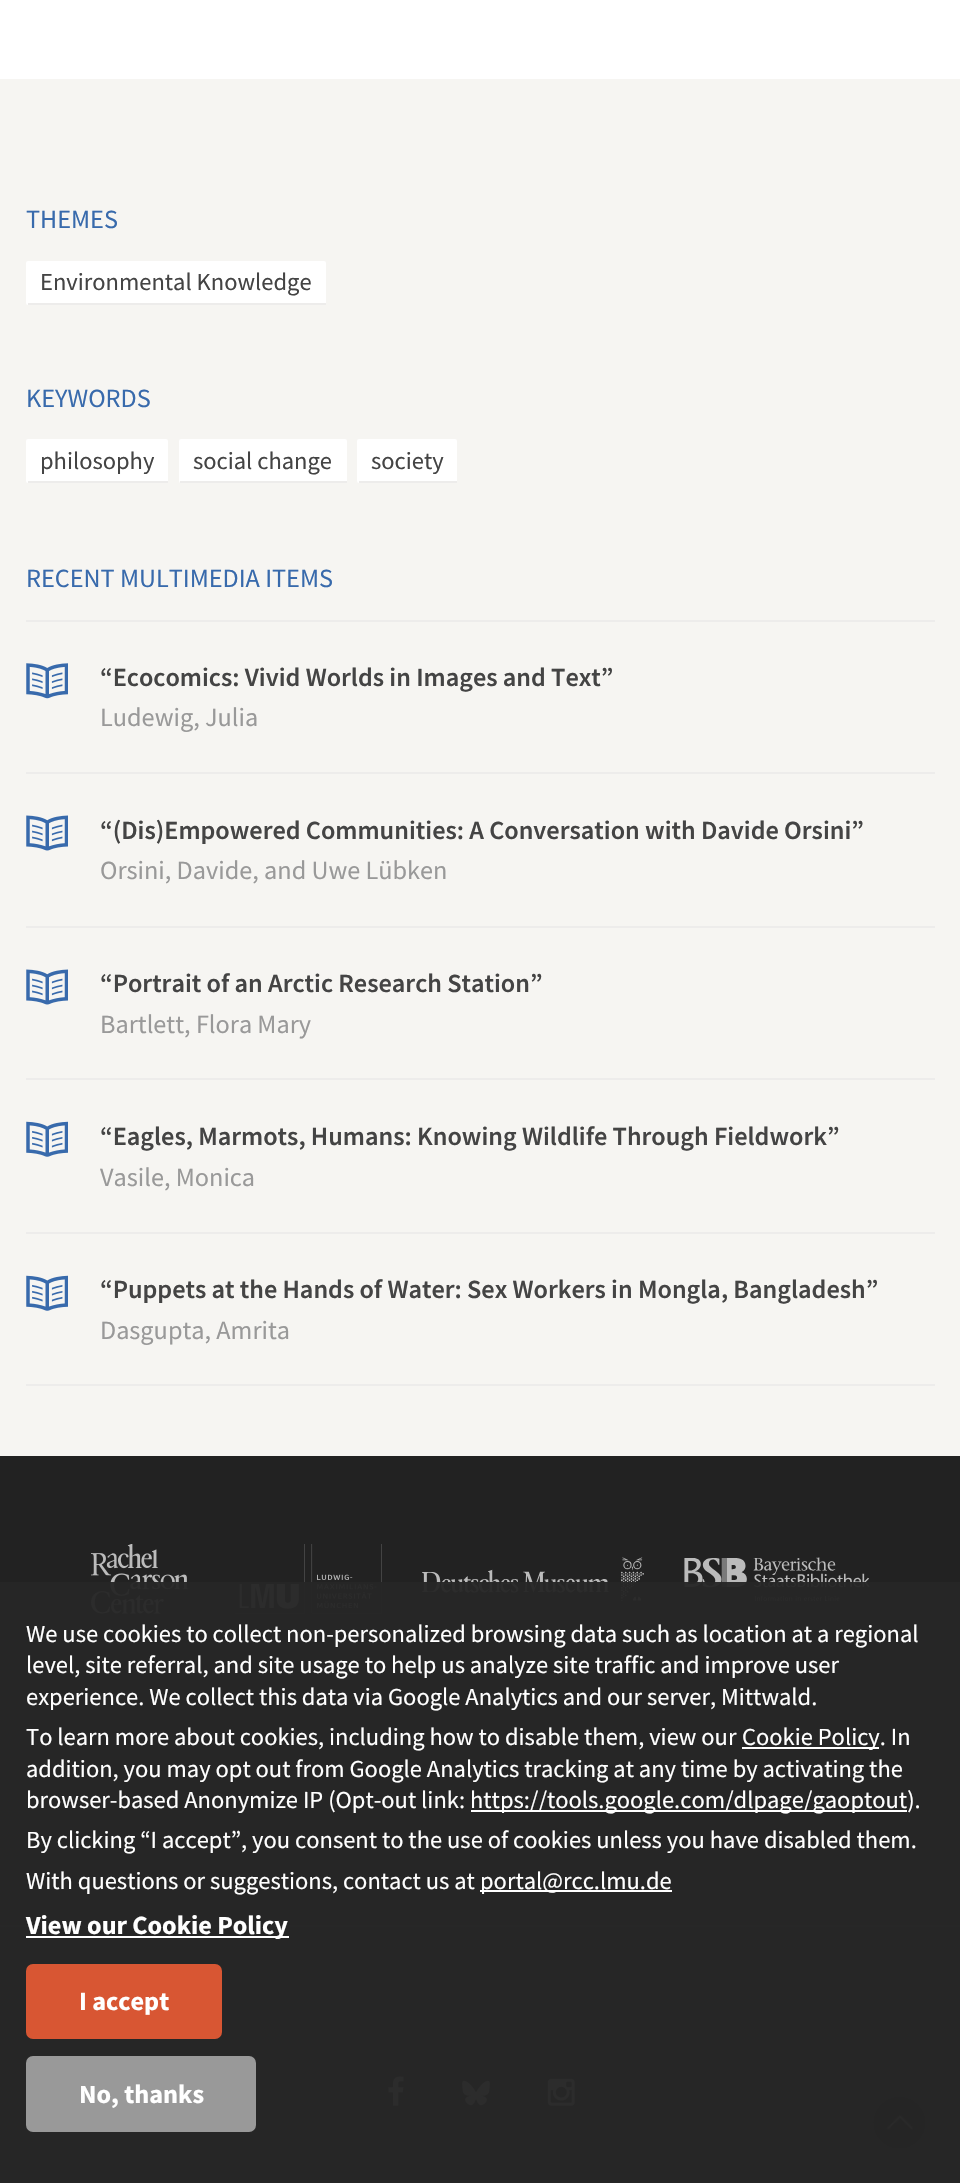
static SkFont makeFont(const char* family, int weight, float size, bool italic = false) {
  SkFontStyle style(weight, SkFontStyle::kNormal_Width,
    italic ? SkFontStyle::kItalic_Slant : SkFontStyle::kUpright_Slant);
  SkFont result(fontMgr->matchFamilyStyle(family, style), size);
  result.setSubpixel(true);
  return result;
}

static void text(SkCanvas* c, const char* s, float x, float y, const SkFont& font, SkColor color) {
  SkPaint ink(SkColor4f::FromColor(color));
  ink.setAntiAlias(true);
  c->drawString(s, x, y, font, ink);
}

static void box(SkCanvas* c, float l, float t, float r, float b, SkColor color) {
  SkPaint ink(SkColor4f::FromColor(color));
  ink.setAntiAlias(true);
  c->drawRect(SkRect::MakeLTRB(l, t, r, b), ink);
}

static void roundBox(SkCanvas* c, float l, float t, float r, float b, float radius, SkColor color) {
  SkPaint ink(SkColor4f::FromColor(color));
  ink.setAntiAlias(true);
  c->drawRoundRect(SkRect::MakeLTRB(l, t, r, b), radius, radius, ink);
}

static void picture(SkCanvas* c, const char* path, float l, float t, float r, float b) {
  auto image = SkImages::DeferredFromEncodedData(SkData::MakeFromFileName(path));
  c->drawImageRect(image, SkRect::MakeLTRB(l, t, r, b), SkSamplingOptions());
}

void draw(SkCanvas* c) {
  SkPaint paint;
  paint.setAntiAlias(true);
  c->clear(0xfff6f5f2);
  box(c, 0, 0, 960, 79, 0xffffffff);
  SkFont face1 = makeFont("Source Sans Pro", 400, 26.25f);
  text(c, "THEMES", 26, 228, face1, 0xff386aac);
  roundBox(c, 26, 261, 326, 305, 2, 0xffffffff);
  box(c, 28, 303, 326, 305, 0xffedeceb);
  SkFont face2 = makeFont("Source Sans Pro", 400, 24.5f);
  text(c, "Environmental Knowledge", 40, 290, face2, 0xff444444);
  text(c, "KEYWORDS", 26, 407, face1, 0xff386aac);
  roundBox(c, 26, 439, 168, 483, 2, 0xffffffff);
  box(c, 28, 481, 168, 483, 0xffedeceb);
  text(c, "philosophy", 40, 469, face2, 0xff444444);
  roundBox(c, 179, 439, 347, 483, 2, 0xffffffff);
  box(c, 180, 481, 347, 483, 0xffedeceb);
  text(c, "social change", 193, 469, face2, 0xff444444);
  roundBox(c, 357, 439, 457, 483, 2, 0xffffffff);
  box(c, 359, 481, 457, 483, 0xffedeceb);
  text(c, "society", 371, 469, face2, 0xff444444);
  text(c, "RECENT MULTIMEDIA ITEMS", 26, 587, face1, 0xff386aac);
  picture(c, "img_01.png", 26, 663, 68, 699);
  box(c, 26, 620, 935, 622, 0xffedeceb);
  box(c, 26, 772, 935, 774, 0xffedeceb);
  SkFont face3 = makeFont("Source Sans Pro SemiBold", 600, 26.25f);
  text(c, "“Ecocomics: Vivid Worlds in Images and Text”", 100, 686, face3, 0xff444444);
  text(c, "Ludewig, Julia", 100, 726, face1, 0xff999999);
  picture(c, "img_02.png", 26, 815, 68, 851);
  box(c, 26, 926, 935, 928, 0xffedeceb);
  text(c, "“(Dis)Empowered Communities: A Conversation with Davide Orsini”", 100, 839, face3, 0xff444444);
  text(c, "Orsini, Davide, and Uwe Lübken", 100, 879, face1, 0xff999999);
  picture(c, "img_02.png", 26, 969, 68, 1005);
  box(c, 26, 1078, 935, 1080, 0xffedeceb);
  text(c, "“Portrait of an Arctic Research Station”", 100, 992, face3, 0xff444444);
  text(c, "Bartlett, Flora Mary", 100, 1033, face1, 0xff999999);
  picture(c, "img_03.png", 26, 1121, 68, 1157);
  box(c, 26, 1232, 935, 1234, 0xffedeceb);
  text(c, "“Eagles, Marmots, Humans: Knowing Wildlife Through Fieldwork”", 100, 1145, face3, 0xff444444);
  text(c, "Vasile, Monica", 100, 1186, face1, 0xff999999);
  picture(c, "img_03.png", 26, 1275, 68, 1311);
  box(c, 26, 1384, 935, 1386, 0xffedeceb);
  text(c, "“Puppets at the Hands of Water: Sex Workers in Mongla, Bangladesh”", 100, 1298, face3, 0xff444444);
  text(c, "Dasgupta, Amrita", 100, 1339, face1, 0xff999999);
  box(c, 0, 1456, 960, 2183, 0xff222222);
  picture(c, "img_04.png", 91, 1544, 189, 1614);
  picture(c, "img_05.png", 235, 1544, 382, 1614);
  picture(c, "img_06.png", 422, 1557, 644, 1601);
  picture(c, "img_07.png", 684, 1557, 870, 1601);
  box(c, 0, 1925, 960, 1927, 0xff444444);
  picture(c, "img_08.png", 388, 2076, 404, 2106);
  picture(c, "img_09.png", 462, 2080, 490, 2106);
  picture(c, "img_10.png", 547, 2078, 575, 2106);
  picture(c, "img_11.png", 873, 2096, 926, 2149);
  box(c, 0, 1582, 960, 2183, 0xf5252525);
  text(c, "We use cookies to collect non-personalized browsing data such as location at a regional", 26, 1642, face2, 0xffffffff);
  text(c, "level, site referral, and site usage to help us analyze site traffic and improve user", 26, 1673, face2, 0xffffffff);
  text(c, "experience. We collect this data via Google Analytics and our server, Mittwald.", 26, 1705, face2, 0xffffffff);
  text(c, "To learn more about cookies, including how to disable them, view our", 26, 1745, face2, 0xffffffff);
  box(c, 742, 1747, 879, 1749, 0xffffffff);
  text(c, "Cookie Policy. In", 742, 1745, face2, 0xffffffff);
  text(c, "addition, you may opt out from Google Analytics tracking at any time by activating the", 26, 1777, face2, 0xffffffff);
  text(c, "browser-based Anonymize IP (Opt-out link:", 26, 1808, face2, 0xffffffff);
  box(c, 471, 1810, 907, 1812, 0xffffffff);
  text(c, "https://tools.google.com/dlpage/gaoptout).", 470, 1808, face2, 0xffffffff);
  text(c, "By clicking “I accept”, you consent to the use of cookies unless you have disabled them.", 26, 1848, face2, 0xffffffff);
  text(c, "With questions or suggestions, contact us at", 26, 1889, face2, 0xffffffff);
  box(c, 480, 1890, 672, 1892, 0xffffffff);
  text(c, "portal@rcc.lmu.de", 480, 1889, face2, 0xffffffff);
  box(c, 26, 1936, 289, 1938, 0xffffffff);
  SkFont face4 = makeFont("Source Sans Pro", 700, 26.25f);
  text(c, "View our Cookie Policy", 26, 1934, face4, 0xffffffff);
  roundBox(c, 26, 1964, 222, 2039, 7, 0xffd85633);
  text(c, "I accept", 79, 2010, face4, 0xffffffff);
  roundBox(c, 26, 2056, 256, 2132, 7, 0xff999999);
  text(c, "No, thanks", 79, 2103, face4, 0xffffffff);
}
